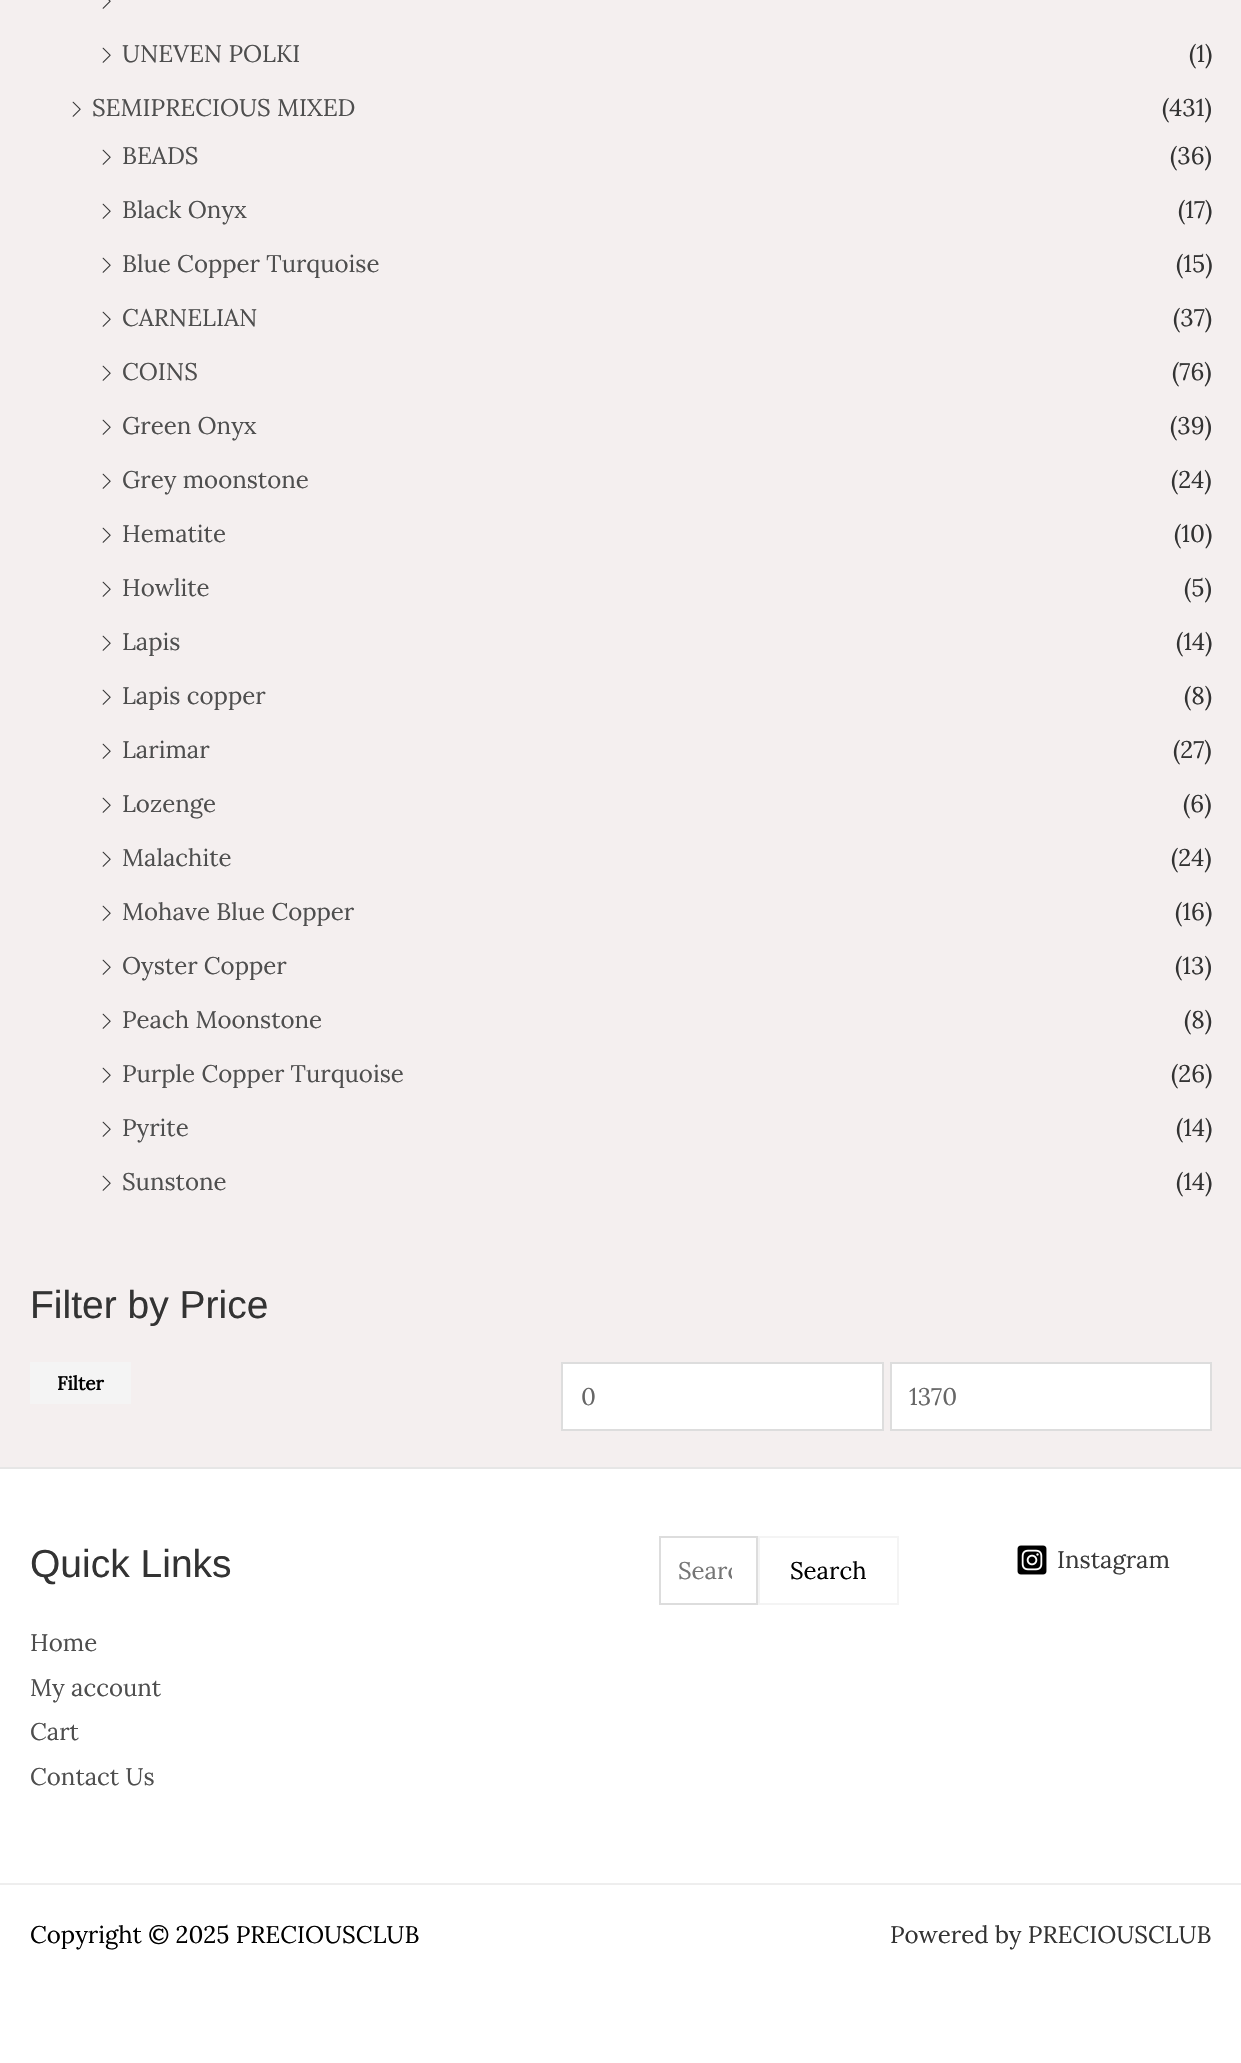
static SkFont makeFont(const char* family, int weight, float size, bool italic = false) {
  SkFontStyle style(weight, SkFontStyle::kNormal_Width,
    italic ? SkFontStyle::kItalic_Slant : SkFontStyle::kUpright_Slant);
  SkFont result(fontMgr->matchFamilyStyle(family, style), size);
  result.setSubpixel(true);
  return result;
}

static void text(SkCanvas* c, const char* s, float x, float y, const SkFont& font, SkColor color) {
  SkPaint ink(SkColor4f::FromColor(color));
  ink.setAntiAlias(true);
  c->drawString(s, x, y, font, ink);
}

static void box(SkCanvas* c, float l, float t, float r, float b, SkColor color) {
  SkPaint ink(SkColor4f::FromColor(color));
  ink.setAntiAlias(true);
  c->drawRect(SkRect::MakeLTRB(l, t, r, b), ink);
}

static void picture(SkCanvas* c, const char* path, float l, float t, float r, float b) {
  auto image = SkImages::DeferredFromEncodedData(SkData::MakeFromFileName(path));
  c->drawImageRect(image, SkRect::MakeLTRB(l, t, r, b), SkSamplingOptions());
}

void draw(SkCanvas* c) {
  SkPaint paint;
  paint.setAntiAlias(true);
  c->clear(0xfff4efef);
  picture(c, "img_01.png", 102, 0, 111, 9);
  picture(c, "img_02.png", 102, 47, 111, 63);
  SkFont face1 = makeFont("Lora", 400, 24);
  text(c, "UNEVEN POLKI", 122, 62, face1, 0xff4e4e4e);
  text(c, "(1)", 1189, 62, face1, 0xff333333);
  picture(c, "img_02.png", 72, 101, 81, 117);
  text(c, "SEMIPRECIOUS MIXED", 92, 116, face1, 0xff4e4e4e);
  text(c, "(431)", 1162, 116, face1, 0xff333333);
  picture(c, "img_02.png", 102, 149, 111, 165);
  text(c, "BEADS", 122, 164, face1, 0xff4e4e4e);
  text(c, "(36)", 1170, 164, face1, 0xff333333);
  picture(c, "img_02.png", 102, 203, 111, 219);
  text(c, "Black Onyx", 122, 218, face1, 0xff4e4e4e);
  text(c, "(17)", 1178, 218, face1, 0xff333333);
  picture(c, "img_02.png", 102, 257, 111, 273);
  text(c, "Blue Copper Turquoise", 122, 272, face1, 0xff4e4e4e);
  text(c, "(15)", 1176, 272, face1, 0xff333333);
  picture(c, "img_02.png", 102, 311, 111, 327);
  text(c, "CARNELIAN", 122, 326, face1, 0xff4e4e4e);
  text(c, "(37)", 1173, 326, face1, 0xff333333);
  picture(c, "img_02.png", 102, 365, 111, 381);
  text(c, "COINS", 122, 380, face1, 0xff4e4e4e);
  text(c, "(76)", 1172, 380, face1, 0xff333333);
  picture(c, "img_02.png", 102, 419, 111, 435);
  text(c, "Green Onyx", 122, 434, face1, 0xff4e4e4e);
  text(c, "(39)", 1170, 434, face1, 0xff333333);
  picture(c, "img_02.png", 102, 473, 111, 489);
  text(c, "Grey moonstone", 122, 488, face1, 0xff4e4e4e);
  text(c, "(24)", 1171, 488, face1, 0xff333333);
  picture(c, "img_02.png", 102, 527, 111, 543);
  text(c, "Hematite", 122, 542, face1, 0xff4e4e4e);
  text(c, "(10)", 1174, 542, face1, 0xff333333);
  picture(c, "img_02.png", 102, 581, 111, 597);
  text(c, "Howlite", 122, 596, face1, 0xff4e4e4e);
  text(c, "(5)", 1184, 596, face1, 0xff333333);
  picture(c, "img_02.png", 102, 635, 111, 651);
  text(c, "Lapis", 122, 650, face1, 0xff4e4e4e);
  text(c, "(14)", 1176, 650, face1, 0xff333333);
  picture(c, "img_02.png", 102, 689, 111, 705);
  text(c, "Lapis copper", 122, 704, face1, 0xff4e4e4e);
  text(c, "(8)", 1184, 704, face1, 0xff333333);
  picture(c, "img_02.png", 102, 743, 111, 759);
  text(c, "Larimar", 122, 758, face1, 0xff4e4e4e);
  text(c, "(27)", 1173, 758, face1, 0xff333333);
  picture(c, "img_02.png", 102, 797, 111, 813);
  text(c, "Lozenge", 122, 812, face1, 0xff4e4e4e);
  text(c, "(6)", 1183, 812, face1, 0xff333333);
  picture(c, "img_02.png", 102, 851, 111, 867);
  text(c, "Malachite", 122, 866, face1, 0xff4e4e4e);
  text(c, "(24)", 1171, 866, face1, 0xff333333);
  picture(c, "img_02.png", 102, 905, 111, 921);
  text(c, "Mohave Blue Copper", 122, 920, face1, 0xff4e4e4e);
  text(c, "(16)", 1175, 920, face1, 0xff333333);
  picture(c, "img_02.png", 102, 959, 111, 975);
  text(c, "Oyster Copper", 122, 974, face1, 0xff4e4e4e);
  text(c, "(13)", 1175, 974, face1, 0xff333333);
  picture(c, "img_02.png", 102, 1013, 111, 1029);
  text(c, "Peach Moonstone", 122, 1028, face1, 0xff4e4e4e);
  text(c, "(8)", 1184, 1028, face1, 0xff333333);
  picture(c, "img_02.png", 102, 1067, 111, 1083);
  text(c, "Purple Copper Turquoise", 122, 1082, face1, 0xff4e4e4e);
  text(c, "(26)", 1171, 1082, face1, 0xff333333);
  picture(c, "img_02.png", 102, 1121, 111, 1137);
  text(c, "Pyrite", 122, 1136, face1, 0xff4e4e4e);
  text(c, "(14)", 1176, 1136, face1, 0xff333333);
  picture(c, "img_02.png", 102, 1175, 111, 1191);
  text(c, "Sunstone", 122, 1190, face1, 0xff4e4e4e);
  text(c, "(14)", 1176, 1190, face1, 0xff333333);
  SkFont face2 = makeFont("Liberation Sans", 400, 39);
  text(c, "Filter by Price", 30, 1318, face2, 0xff333333);
  box(c, 30, 1362, 131, 1404, 0xfff4f4f4);
  SkFont face3 = makeFont("Lora", 700, 19);
  text(c, "Filter", 57, 1390, face3, 0xff000000);
  paint.setColor(0xffffffff);
  c->drawRect(SkRect::MakeLTRB(562, 1363, 883, 1430), paint);
  paint.setStyle(SkPaint::kStroke_Style);
  paint.setStrokeWidth(2);
  paint.setColor(0xffdddddd);
  c->drawRect(SkRect::MakeLTRB(562, 1363, 883, 1430), paint);
  text(c, "0", 581, 1405, face1, 0xff666666);
  paint.setStyle(SkPaint::kFill_Style);
  paint.setColor(0xffffffff);
  c->drawRect(SkRect::MakeLTRB(891, 1363, 1211, 1430), paint);
  paint.setStyle(SkPaint::kStroke_Style);
  paint.setColor(0xffdddddd);
  c->drawRect(SkRect::MakeLTRB(891, 1363, 1211, 1430), paint);
  text(c, "1370", 909, 1405, face1, 0xff666666);
  box(c, 0, 1469, 1241, 2063, 0xffffffff);
  box(c, 0, 1467, 1241, 1469, 0xffe6e6e6);
  text(c, "Quick Links", 30, 1577, face2, 0xff333333);
  text(c, "Home", 30, 1651, face1, 0xff4e4e4e);
  text(c, "My account", 30, 1696, face1, 0xff4e4e4e);
  text(c, "Cart", 30, 1740, face1, 0xff4e4e4e);
  text(c, "Contact Us", 30, 1785, face1, 0xff4e4e4e);
  c->drawRect(SkRect::MakeLTRB(660, 1537, 757, 1604), paint);
  c->save();
  c->clipRect(SkRect::MakeLTRB(678, 1556, 732, 1586));
  text(c, "Searc", 678, 1579, face1, 0xff757575);
  c->restore();
  paint.setColor(0xfff4f4f4);
  c->drawRect(SkRect::MakeLTRB(759, 1537, 898, 1604), paint);
  text(c, "Search", 790, 1579, face1, 0xff000000);
  picture(c, "img_03.png", 1017, 1545, 1047, 1575);
  text(c, "Instagram", 1057, 1568, face1, 0xff3a3a3a);
  box(c, 0, 1883, 1241, 1885, 0xffeeeeee);
  text(c, "Copyright © 2025 PRECIOUSCLUB", 30, 1943, face1, 0xff000000);
  text(c, "Powered by PRECIOUSCLUB", 890, 1943, face1, 0xff333333);
}
